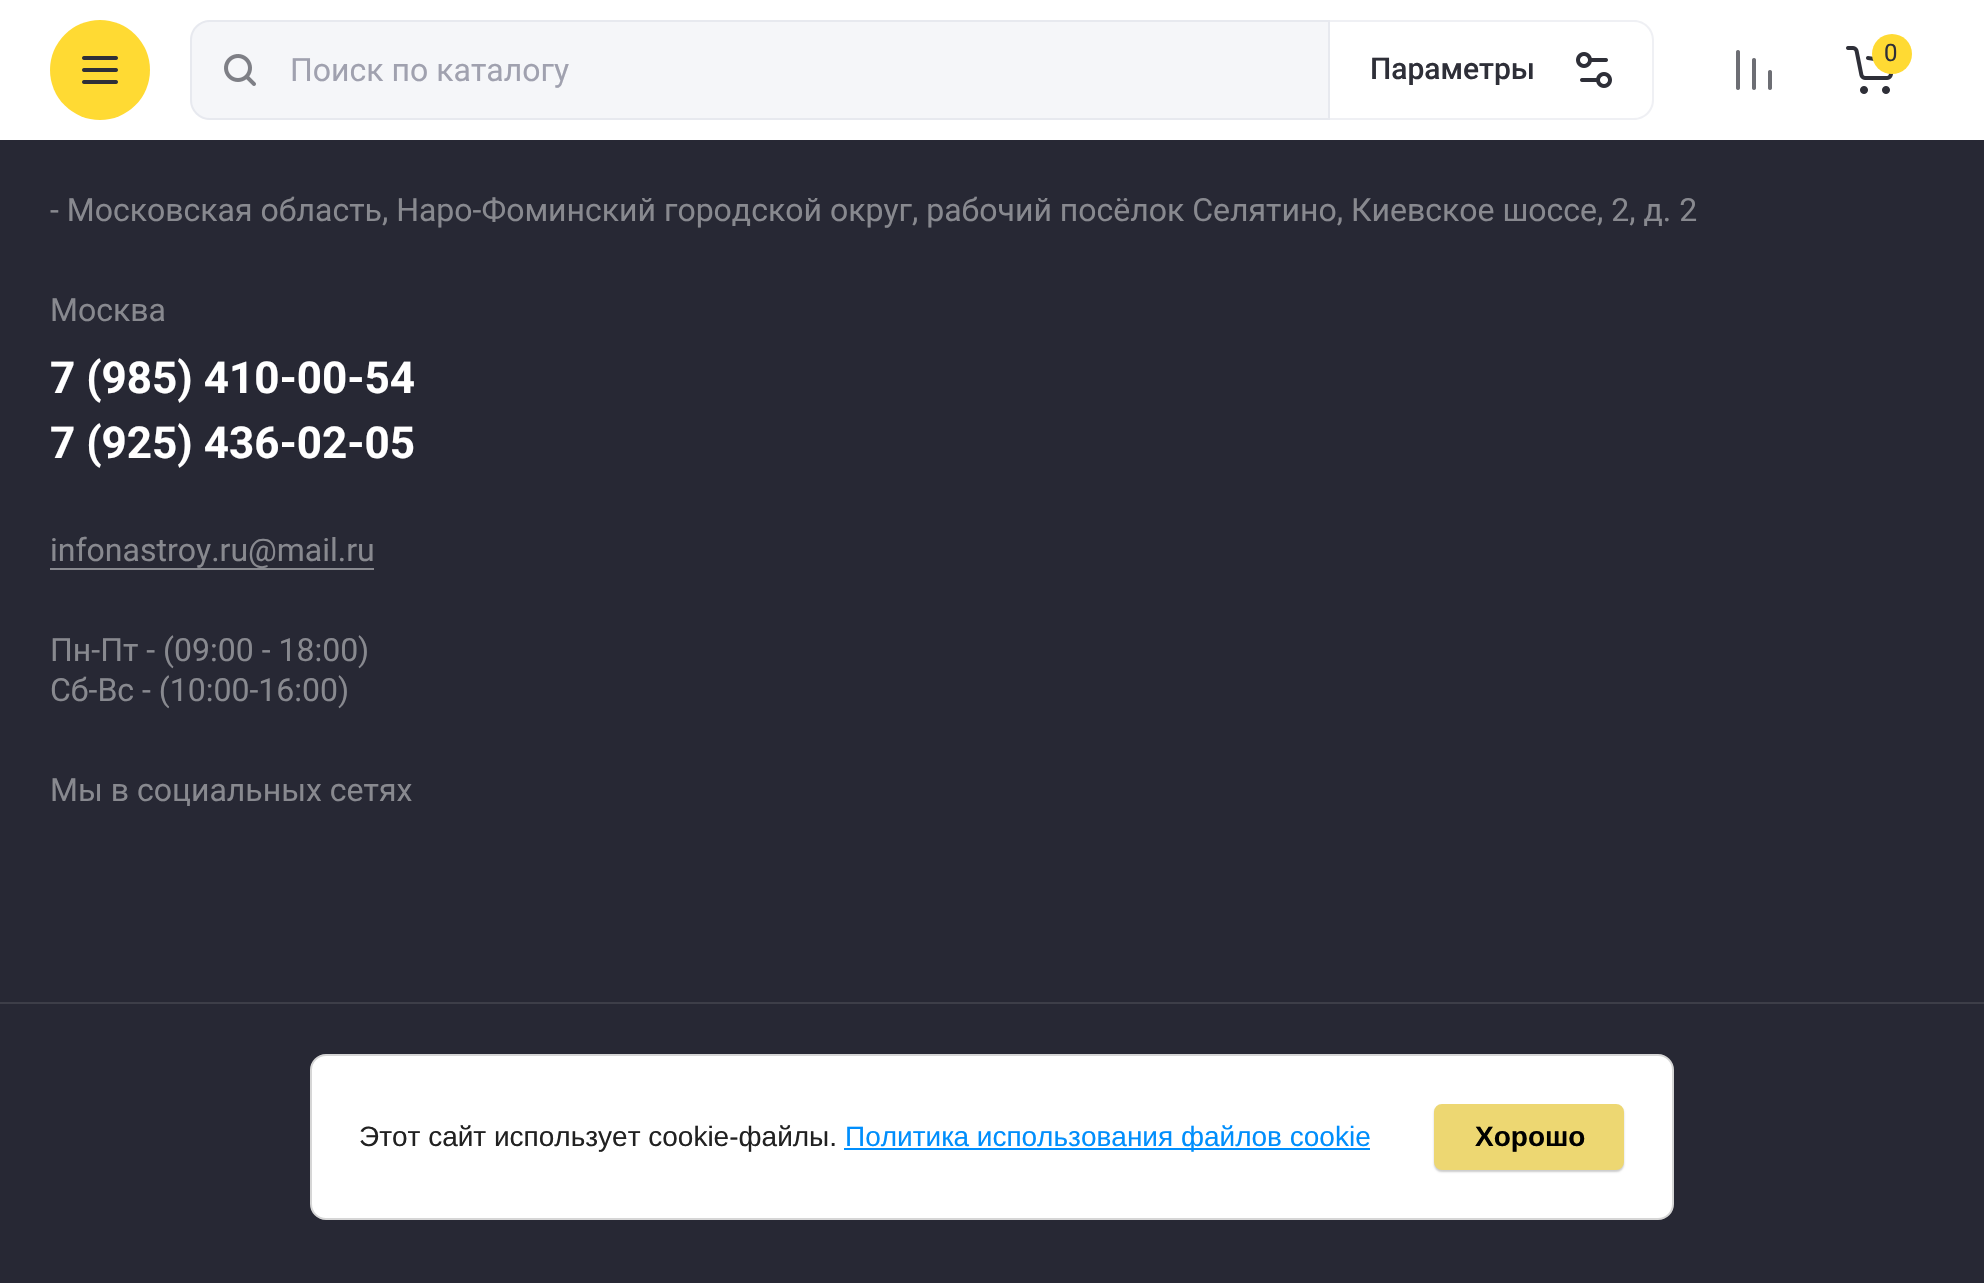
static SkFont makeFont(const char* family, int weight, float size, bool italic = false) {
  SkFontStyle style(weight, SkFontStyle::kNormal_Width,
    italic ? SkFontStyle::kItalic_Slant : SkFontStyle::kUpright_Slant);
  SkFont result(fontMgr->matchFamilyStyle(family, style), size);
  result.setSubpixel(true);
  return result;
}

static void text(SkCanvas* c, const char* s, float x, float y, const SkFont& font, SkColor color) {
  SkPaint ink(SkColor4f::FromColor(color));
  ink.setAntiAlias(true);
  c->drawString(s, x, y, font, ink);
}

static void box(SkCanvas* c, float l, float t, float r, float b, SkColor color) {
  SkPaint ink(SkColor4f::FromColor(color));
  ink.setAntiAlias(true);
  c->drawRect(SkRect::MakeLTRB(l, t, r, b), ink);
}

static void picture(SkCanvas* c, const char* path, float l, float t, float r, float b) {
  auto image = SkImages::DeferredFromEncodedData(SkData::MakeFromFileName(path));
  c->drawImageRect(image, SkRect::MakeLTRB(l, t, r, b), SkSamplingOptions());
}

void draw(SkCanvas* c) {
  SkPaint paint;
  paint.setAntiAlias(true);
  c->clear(0xff272834);
  box(c, 0, 0, 1984, 140, 0xffffffff);
  paint.setColor(0xffffda33);
  c->drawCircle(100, 70, 50, paint);
  picture(c, "img_01.png", 82, 56, 118, 84);
  picture(c, "img_02.png", 1736, 50, 1772, 90);
  picture(c, "img_03.png", 1846, 46, 1894, 94);
  c->drawCircle(1892, 54, 20, paint);
  SkFont face1 = makeFont("Roboto", 400, 24);
  text(c, "0", 1884, 61, face1, 0xff2e2f38);
  paint.setColor(0xfff5f6f9);
  c->drawPath(SkPathBuilder().moveTo(210, 20).lineTo(1330, 20).lineTo(1330, 120).lineTo(210, 120).cubicTo(199, 120, 190, 111, 190, 100).lineTo(190, 40).cubicTo(190, 29, 199, 20, 210, 20).close().detach(), paint);
  paint.setStyle(SkPaint::kStroke_Style);
  paint.setStrokeWidth(2);
  paint.setColor(0x33b1b2c7);
  c->drawPath(SkPathBuilder().moveTo(210, 21).lineTo(1329, 21).lineTo(1329, 119).lineTo(210, 119).cubicTo(199.5f, 119, 191, 110.5f, 191, 100).lineTo(191, 40).cubicTo(191, 29.5f, 199.5f, 21, 210, 21).close().detach(), paint);
  picture(c, "img_04.png", 224, 54, 256, 86);
  SkFont face2 = makeFont("Roboto", 400, 32);
  text(c, "Поиск по каталогу", 290, 81, face2, 0xffa0a1af);
  paint.setStyle(SkPaint::kFill_Style);
  paint.setColor(0xffeff0f4);
  c->drawPath(SkPathBuilder(SkPathFillType::kEvenOdd).moveTo(1330, 20).lineTo(1634, 20).cubicTo(1645, 20, 1654, 29, 1654, 40).lineTo(1654, 100).cubicTo(1654, 111, 1645, 120, 1634, 120).lineTo(1330, 120).close().moveTo(1330, 22).lineTo(1634, 22).cubicTo(1644, 22, 1652, 30, 1652, 40).lineTo(1652, 100).cubicTo(1652, 110, 1644, 118, 1634, 118).lineTo(1330, 118).close().detach(), paint);
  SkFont face3 = makeFont("Roboto", 500, 30);
  text(c, "Параметры", 1370, 79, face3, 0xff2e2f38);
  picture(c, "img_05.png", 1576, 52, 1612, 88);
  text(c, "- Московская область, Наро-Фоминский городской округ, рабочий посёлок Селятино, Киевское шоссе, 2, д. 2", 50, 221, face2, 0xff88898f);
  text(c, "Москва", 50, 321, face2, 0xff88898f);
  SkFont face4 = makeFont("Roboto", 700, 44);
  text(c, "7 (985) 410-00-54", 50, 393, face4, 0xffffffff);
  text(c, "7 (925) 436-02-05", 50, 458, face4, 0xffffffff);
  box(c, 50, 568, 374, 570, 0xff88898f);
  text(c, "infonastroy.ru@mail.ru", 50, 561, face2, 0xff88898f);
  text(c, "Пн-Пт - (09:00 - 18:00)", 50, 661, face2, 0xff88898f);
  text(c, "Сб-Вс - (10:00-16:00)", 50, 701, face2, 0xff88898f);
  text(c, "Мы в социальных сетях", 50, 801, face2, 0xff88898f);
  box(c, 0, 1002, 1984, 1004, 0xff3d3e48);
  paint.setColor(0xffffffff);
  c->drawRoundRect(SkRect::MakeLTRB(311, 1055, 1673, 1219), 15, 15, paint);
  paint.setStyle(SkPaint::kStroke_Style);
  paint.setColor(0xffd6d6d6);
  c->drawRoundRect(SkRect::MakeLTRB(311, 1055, 1673, 1219), 15, 15, paint);
  SkFont face5 = makeFont("Liberation Sans", 400, 28);
  text(c, "Этот сайт использует cookie-файлы.", 359, 1146, face5, 0xff212121);
  box(c, 844, 1148, 1370, 1150, 0xff008efc);
  text(c, "Политика использования файлов cookie", 845, 1146, face5, 0xff008efc);
  paint.setStyle(SkPaint::kFill_Style);
  paint.setColor(0x33000000);
  paint.setMaskFilter(SkMaskFilter::MakeBlur(kNormal_SkBlurStyle, 1));
  c->drawRoundRect(SkRect::MakeLTRB(1434, 1106, 1624, 1172), 8, 8, paint);
  paint.setMaskFilter(nullptr);
  paint.setColor(0xffedd772);
  c->drawRoundRect(SkRect::MakeLTRB(1435, 1105, 1623, 1169), 7, 7, paint);
  paint.setStyle(SkPaint::kStroke_Style);
  c->drawRoundRect(SkRect::MakeLTRB(1435, 1105, 1623, 1169), 7, 7, paint);
  SkFont face6 = makeFont("Liberation Sans", 700, 28);
  text(c, "Хорошо", 1475, 1146, face6, 0xff000000);
}
